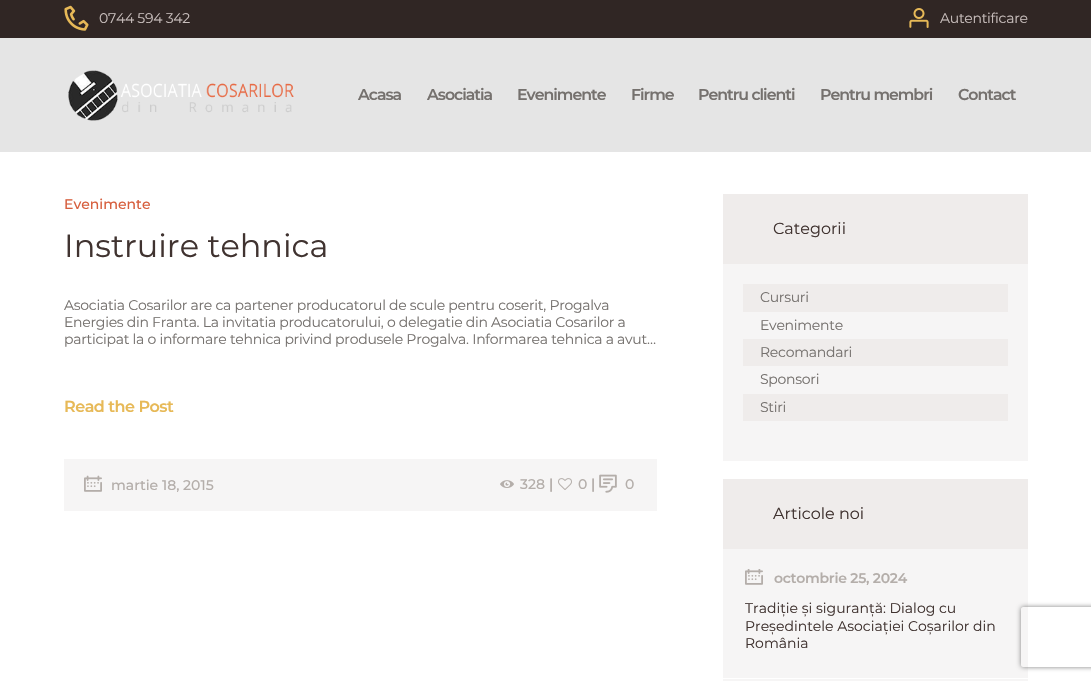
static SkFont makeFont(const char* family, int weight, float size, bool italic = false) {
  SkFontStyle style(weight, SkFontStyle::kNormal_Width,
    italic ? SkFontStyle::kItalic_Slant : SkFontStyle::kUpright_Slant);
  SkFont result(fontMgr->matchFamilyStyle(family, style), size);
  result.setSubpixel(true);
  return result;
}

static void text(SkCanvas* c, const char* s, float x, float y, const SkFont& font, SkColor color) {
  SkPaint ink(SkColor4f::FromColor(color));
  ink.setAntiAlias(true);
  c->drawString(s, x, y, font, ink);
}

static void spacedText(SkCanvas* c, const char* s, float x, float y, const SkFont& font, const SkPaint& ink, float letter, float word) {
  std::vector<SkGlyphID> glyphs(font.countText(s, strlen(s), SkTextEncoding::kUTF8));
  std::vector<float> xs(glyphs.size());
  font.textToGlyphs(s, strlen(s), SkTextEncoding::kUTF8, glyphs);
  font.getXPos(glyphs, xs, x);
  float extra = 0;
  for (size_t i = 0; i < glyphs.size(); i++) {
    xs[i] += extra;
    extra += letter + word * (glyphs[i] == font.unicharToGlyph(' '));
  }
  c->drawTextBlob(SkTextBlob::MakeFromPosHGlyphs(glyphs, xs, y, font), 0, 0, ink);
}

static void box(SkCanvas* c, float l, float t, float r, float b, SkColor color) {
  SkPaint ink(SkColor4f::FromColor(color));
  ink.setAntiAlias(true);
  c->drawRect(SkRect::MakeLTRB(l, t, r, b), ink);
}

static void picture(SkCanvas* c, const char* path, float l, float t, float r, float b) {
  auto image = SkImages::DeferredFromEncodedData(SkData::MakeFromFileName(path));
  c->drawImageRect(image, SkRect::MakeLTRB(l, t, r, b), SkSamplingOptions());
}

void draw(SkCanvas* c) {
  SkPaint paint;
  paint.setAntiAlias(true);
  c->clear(0xffffffff);
  box(c, 0, 0, 1091, 38, 0xff302624);
  picture(c, "img_01.png", 64, 5, 89, 31);
  SkFont face1 = makeFont("Montserrat", 400, 14);
  paint.setColor(0xffc8bebc);
  spacedText(c, "0744 594 342", 99, 23, face1, paint, -0.27f, 0);
  picture(c, "img_02.png", 909, 8, 929, 28);
  spacedText(c, "Autentificare", 940, 23, face1, paint, -0.27f, 0);
  box(c, 0, 38, 1091, 152, 0xffe5e5e5);
  picture(c, "img_03.png", 68, 70, 294, 121);
  SkFont face2 = makeFont("Montserrat", 600, 15.75f);
  paint.setColor(0xff75716e);
  spacedText(c, "Acasa", 358, 100, face2, paint, -1, 0);
  spacedText(c, "Asociatia", 427, 100, face2, paint, -1, 0);
  spacedText(c, "Evenimente", 517, 100, face2, paint, -1, 0);
  spacedText(c, "Firme", 631, 100, face2, paint, -1, 0);
  spacedText(c, "Pentru clienti", 698, 100, face2, paint, -1, 0);
  spacedText(c, "Pentru membri", 820, 100, face2, paint, -1, 0);
  spacedText(c, "Contact", 958, 100, face2, paint, -1, 0);
  SkFont face3 = makeFont("Montserrat", 500, 14);
  text(c, "Evenimente", 64, 209, face3, 0xffd75f3e);
  SkFont face4 = makeFont("Montserrat", 400, 32);
  text(c, "Instruire tehnica", 64, 257, face4, 0xff403330);
  spacedText(c, "Asociatia Cosarilor are ca partener producatorul de scule pentru coserit, Progalva", 64, 310, face1, paint, -0.27f, 0);
  spacedText(c, "Energies din Franta. La invitatia producatorului, o delegatie din Asociatia Cosarilor a", 64, 327, face1, paint, -0.27f, 0);
  spacedText(c, "participat la o informare tehnica privind produsele Progalva. Informarea tehnica a avut…", 64, 344, face1, paint, -0.27f, 0);
  SkFont face5 = makeFont("Montserrat", 600, 16);
  paint.setColor(0xffe7b957);
  spacedText(c, "Read the Post", 64, 412, face5, paint, -0.5f, 0);
  box(c, 64, 459, 657, 511, 0xfff6f5f5);
  picture(c, "img_04.png", 84, 475, 102, 492);
  text(c, "martie 18, 2015", 111, 490, face3, 0xffb4aeaa);
  picture(c, "img_05.png", 500, 480, 514, 488);
  text(c, "328", 520, 489, face3, 0xffb4aeaa);
  SkFont face6 = makeFont("Montserrat", 600, 14);
  text(c, "|", 549, 489, face6, 0xffb4aeaa);
  picture(c, "img_06.png", 558, 478, 572, 490);
  text(c, "0", 578, 489, face3, 0xffb4aeaa);
  text(c, "|", 591, 489, face6, 0xffb4aeaa);
  picture(c, "img_07.png", 599, 474, 617, 493);
  text(c, "0", 625, 489, face3, 0xffb4aeaa);
  box(c, 723, 264, 1028, 461, 0xfff6f5f5);
  box(c, 723, 194, 1028, 264, 0xffefeceb);
  SkFont face7 = makeFont("Montserrat", 400, 16);
  text(c, "Categorii", 773, 234, face7, 0xff403330);
  box(c, 743, 284, 1008, 312, 0xffefeceb);
  paint.setColor(0xff75716e);
  spacedText(c, "Cursuri", 760, 302, face1, paint, -0.27f, 0);
  spacedText(c, "Evenimente", 760, 330, face1, paint, -0.27f, 0);
  box(c, 743, 339, 1008, 366, 0xffefeceb);
  spacedText(c, "Recomandari", 760, 357, face1, paint, -0.27f, 0);
  spacedText(c, "Sponsori", 760, 384, face1, paint, -0.27f, 0);
  box(c, 743, 394, 1008, 421, 0xffefeceb);
  spacedText(c, "Stiri", 760, 412, face1, paint, -0.27f, 0);
  box(c, 723, 549, 1028, 681, 0xfff6f5f5);
  box(c, 723, 479, 1028, 549, 0xffefeceb);
  text(c, "Articole noi", 773, 519, face7, 0xff403330);
  picture(c, "img_08.png", 745, 569, 763, 585);
  paint.setColor(0xffb4aeaa);
  spacedText(c, "octombrie 25, 2024", 774, 583, face6, paint, -0.27f, 0);
  text(c, "Tradiție și siguranță: Dialog cu", 745, 613, face1, 0xff403330);
  text(c, "Președintele Asociației Coșarilor din", 745, 631, face1, 0xff403330);
  text(c, "România", 745, 648, face1, 0xff403330);
  box(c, 723, 678, 1028, 679, 0xffffffff);
  c->save();
  c->clipPath(SkPathBuilder(SkPathFillType::kEvenOdd).moveTo(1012, 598).lineTo(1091, 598).lineTo(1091, 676).lineTo(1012, 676).close().moveTo(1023, 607).lineTo(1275, 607).cubicTo(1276, 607, 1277, 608, 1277, 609).lineTo(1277, 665).cubicTo(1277, 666, 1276, 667, 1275, 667).lineTo(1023, 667).cubicTo(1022, 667, 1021, 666, 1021, 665).lineTo(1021, 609).cubicTo(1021, 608, 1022, 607, 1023, 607).close().detach(), true);
  paint.setColor(0xff808080);
  paint.setMaskFilter(SkMaskFilter::MakeBlur(kNormal_SkBlurStyle, 2.5f));
  c->drawRoundRect(SkRect::MakeLTRB(1021, 607, 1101, 667), 2, 2, paint);
  paint.setMaskFilter(nullptr);
  c->restore();
}
